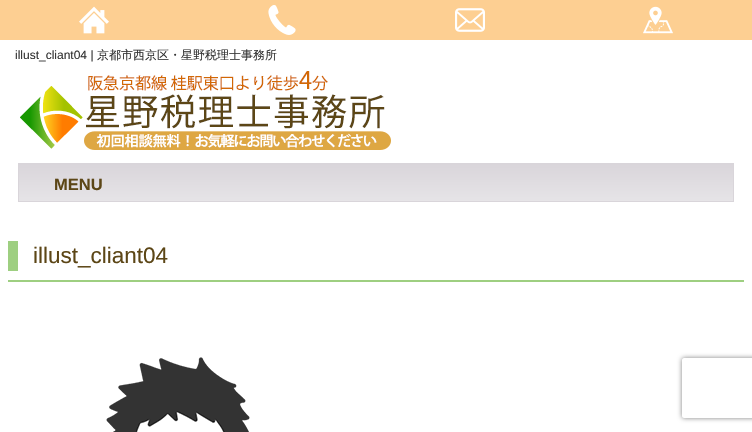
static SkFont makeFont(const char* family, int weight, float size, bool italic = false) {
  SkFontStyle style(weight, SkFontStyle::kNormal_Width,
    italic ? SkFontStyle::kItalic_Slant : SkFontStyle::kUpright_Slant);
  SkFont result(fontMgr->matchFamilyStyle(family, style), size);
  result.setSubpixel(true);
  return result;
}

static void text(SkCanvas* c, const char* s, float x, float y, const SkFont& font, SkColor color) {
  SkPaint ink(SkColor4f::FromColor(color));
  ink.setAntiAlias(true);
  c->drawString(s, x, y, font, ink);
}

static void box(SkCanvas* c, float l, float t, float r, float b, SkColor color) {
  SkPaint ink(SkColor4f::FromColor(color));
  ink.setAntiAlias(true);
  c->drawRect(SkRect::MakeLTRB(l, t, r, b), ink);
}

static void picture(SkCanvas* c, const char* path, float l, float t, float r, float b) {
  auto image = SkImages::DeferredFromEncodedData(SkData::MakeFromFileName(path));
  c->drawImageRect(image, SkRect::MakeLTRB(l, t, r, b), SkSamplingOptions());
}

void draw(SkCanvas* c) {
  SkPaint paint;
  paint.setAntiAlias(true);
  c->clear(0xffffffff);
  box(c, 0, 0, 752, 40, 0xfffdcf92);
  picture(c, "img_01.png", 79, 6, 109, 34);
  picture(c, "img_02.png", 268, 5, 296, 35);
  picture(c, "img_03.png", 455, 8, 485, 32);
  picture(c, "img_04.png", 643, 6, 673, 34);
  picture(c, "img_05.png", 20, 71, 391, 150);
  SkFont face1 = makeFont("Liberation Sans", 400, 12);
  text(c, "illust_cliant04 |", 15, 59, face1, 0xff333333);
  SkFont face2 = makeFont("WenQuanYi Zen Hei", 500, 12);
  text(c, "京都市西京区・星野税理士事務所", 97, 59, face2, 0xff333333);
  {
    const SkColor colors[] = {0xffd9d5da, 0xffe6e4e7};
    const float stops[] = {0, 1};
    const SkPoint ends[] = {{376, 164}, {376, 201}};
    paint.setShader(SkGradientShader::MakeLinear(ends, colors, stops, 2, SkTileMode::kClamp));
    paint.setAlpha(255);
  }
  c->drawRect(SkRect::MakeLTRB(19, 164, 733, 201), paint);
  paint.setStyle(SkPaint::kStroke_Style);
  paint.setStrokeWidth(1);
  paint.setShader(nullptr);
  paint.setColor(0xffd9d5da);
  c->drawRect(SkRect::MakeLTRB(18.5f, 163.5f, 733.5f, 201.5f), paint);
  SkFont face3 = makeFont("Liberation Sans", 700, 16.5f);
  text(c, "MENU", 54, 190, face3, 0xff5c4616);
  box(c, 8, 241, 18, 271, 0xff9ecf81);
  box(c, 8, 280, 744, 282, 0xff9ecf81);
  SkFont face4 = makeFont("Liberation Sans", 400, 22.5f);
  text(c, "illust_cliant04", 33, 263, face4, 0xff5c4616);
  picture(c, "img_06.png", 106, 357, 250, 432);
  c->save();
  c->clipPath(SkPathBuilder(SkPathFillType::kEvenOdd).moveTo(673, 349).lineTo(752, 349).lineTo(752, 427).lineTo(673, 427).close().moveTo(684, 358).lineTo(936, 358).cubicTo(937, 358, 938, 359, 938, 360).lineTo(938, 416).cubicTo(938, 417, 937, 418, 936, 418).lineTo(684, 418).cubicTo(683, 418, 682, 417, 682, 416).lineTo(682, 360).cubicTo(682, 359, 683, 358, 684, 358).close().detach(), true);
  paint.setStyle(SkPaint::kFill_Style);
  paint.setColor(0xff808080);
  paint.setMaskFilter(SkMaskFilter::MakeBlur(kNormal_SkBlurStyle, 2.5f));
  c->drawRoundRect(SkRect::MakeLTRB(682, 358, 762, 418), 2, 2, paint);
  paint.setMaskFilter(nullptr);
  c->restore();
}
